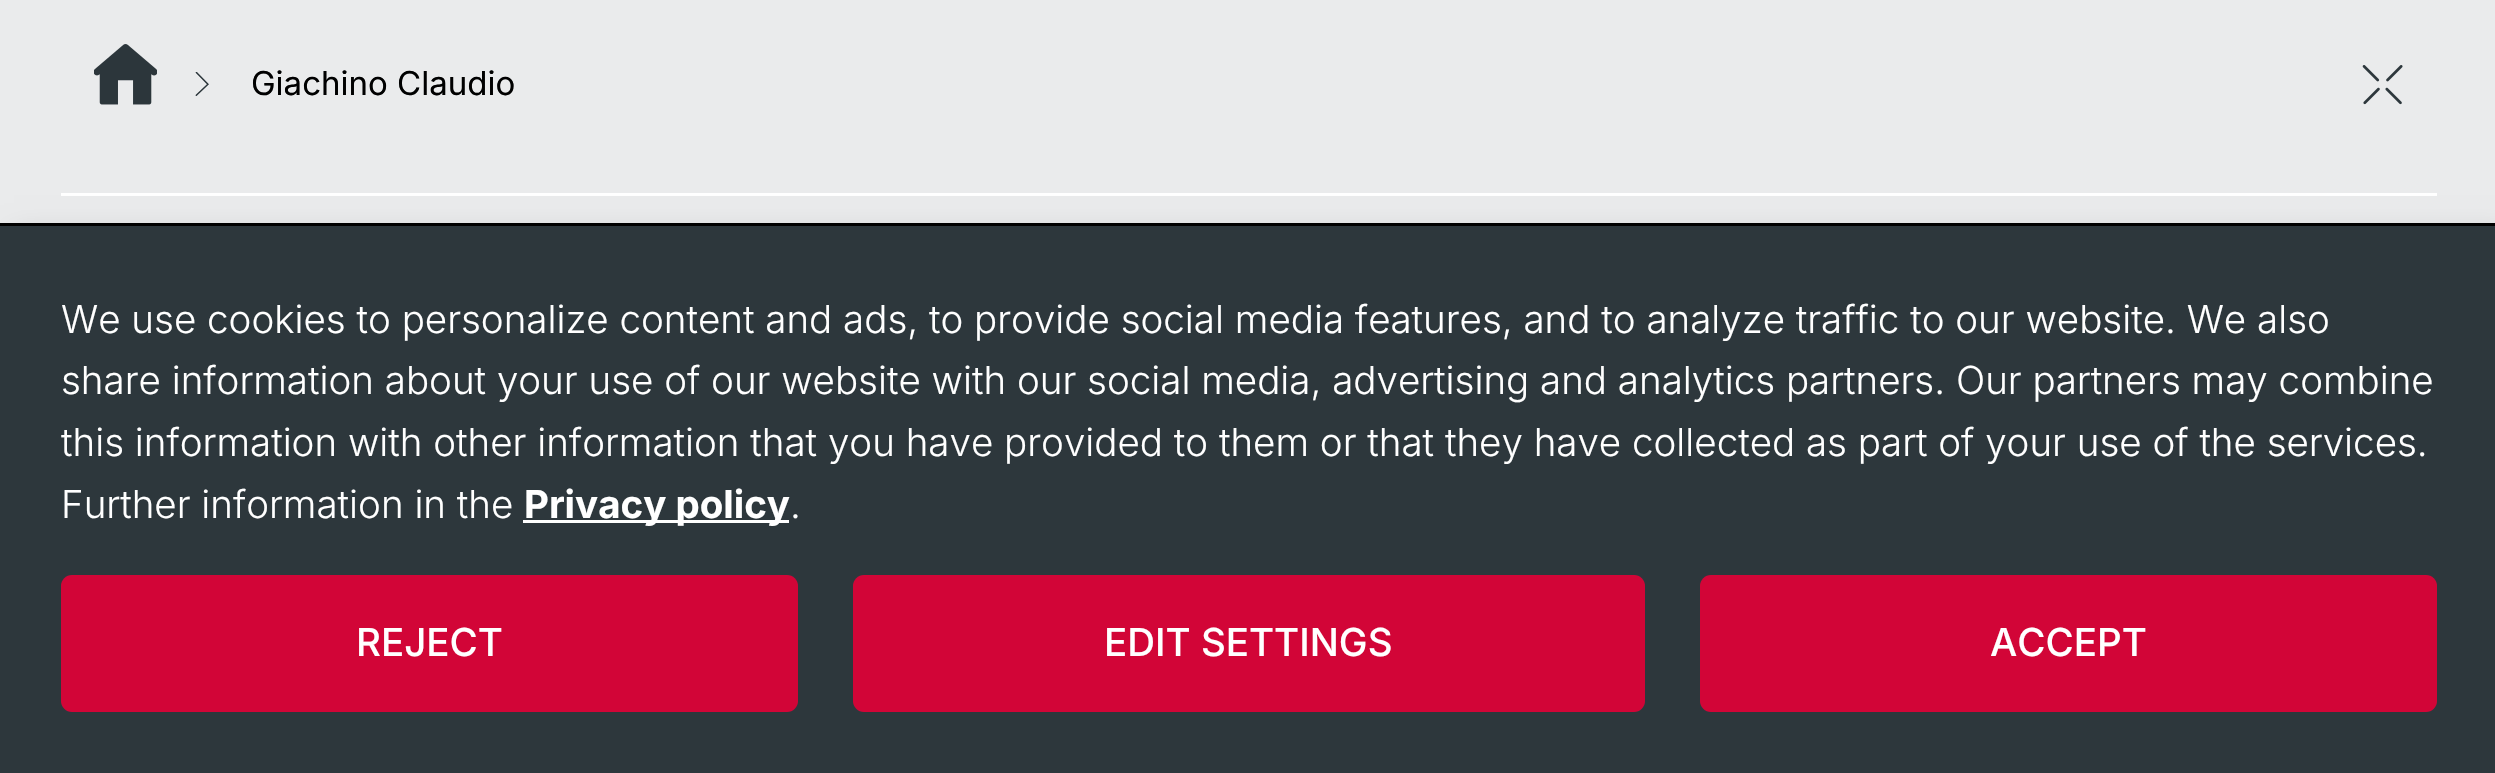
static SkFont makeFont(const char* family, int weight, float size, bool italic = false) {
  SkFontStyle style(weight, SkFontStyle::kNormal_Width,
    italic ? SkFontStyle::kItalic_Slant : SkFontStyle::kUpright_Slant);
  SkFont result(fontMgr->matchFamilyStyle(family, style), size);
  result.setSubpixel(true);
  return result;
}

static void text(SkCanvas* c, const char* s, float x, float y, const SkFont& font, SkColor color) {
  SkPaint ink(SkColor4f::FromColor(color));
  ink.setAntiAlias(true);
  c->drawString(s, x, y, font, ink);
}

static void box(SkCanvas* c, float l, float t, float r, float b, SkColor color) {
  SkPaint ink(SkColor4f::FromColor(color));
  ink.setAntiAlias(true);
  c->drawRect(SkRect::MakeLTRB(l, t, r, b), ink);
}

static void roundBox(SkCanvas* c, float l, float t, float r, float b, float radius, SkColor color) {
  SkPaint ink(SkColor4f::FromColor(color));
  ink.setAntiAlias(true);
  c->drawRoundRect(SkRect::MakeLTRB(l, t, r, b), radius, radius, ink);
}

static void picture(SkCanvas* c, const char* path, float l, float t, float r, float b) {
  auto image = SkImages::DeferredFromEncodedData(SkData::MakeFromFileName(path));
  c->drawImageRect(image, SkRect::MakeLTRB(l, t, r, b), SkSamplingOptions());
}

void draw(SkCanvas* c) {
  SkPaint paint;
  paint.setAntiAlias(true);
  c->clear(0xffeaebec);
  picture(c, "img_01.png", 94, 44, 157, 105);
  picture(c, "img_02.png", 195, 72, 209, 96);
  SkFont face1 = makeFont("Inter", 400, 33);
  text(c, "Giachino Claudio", 251, 95, face1, 0xff000000);
  picture(c, "img_03.png", 2362, 65, 2403, 105);
  box(c, 61, 193, 2437, 196, 0xffffffff);
  paint.setColor(0x30000000);
  paint.setMaskFilter(SkMaskFilter::MakeBlur(kNormal_SkBlurStyle, 14));
  c->drawRect(SkRect::MakeLTRB(14, 237, 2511, 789), paint);
  paint.setMaskFilter(nullptr);
  box(c, 0, 226, 2495, 773, 0xff2d373c);
  box(c, 0, 223, 2495, 226, 0xff000000);
  SkFont face2 = makeFont("Inter", 300, 38.5f);
  text(c, "We use cookies to personalize content and ads, to provide social media features, and to analyze traffic to our website. We also", 61, 333, face2, 0xffffffff);
  text(c, "share information about your use of our website with our social media, advertising and analytics partners. Our partners may combine", 61, 394, face2, 0xffffffff);
  text(c, "this information with other information that you have provided to them or that they have collected as part of your use of the services.", 61, 456, face2, 0xffffffff);
  text(c, "Further information in the", 61, 518, face2, 0xffffffff);
  box(c, 523, 520, 789, 523, 0xffffffff);
  SkFont face3 = makeFont("Inter", 700, 38.5f);
  text(c, "Privacy policy", 524, 518, face3, 0xffffffff);
  text(c, ".", 790, 518, face2, 0xffffffff);
  roundBox(c, 61, 575, 798, 712, 11, 0xffd20537);
  SkFont face4 = makeFont("Inter", 500, 38.5f);
  text(c, "REJECT", 356, 656, face4, 0xffffffff);
  roundBox(c, 1700, 575, 2437, 712, 11, 0xffd20537);
  text(c, "ACCEPT", 1990, 656, face4, 0xffffffff);
  roundBox(c, 853, 575, 1645, 712, 11, 0xffd20537);
  text(c, "EDIT SETTINGS", 1104, 656, face4, 0xffffffff);
}
